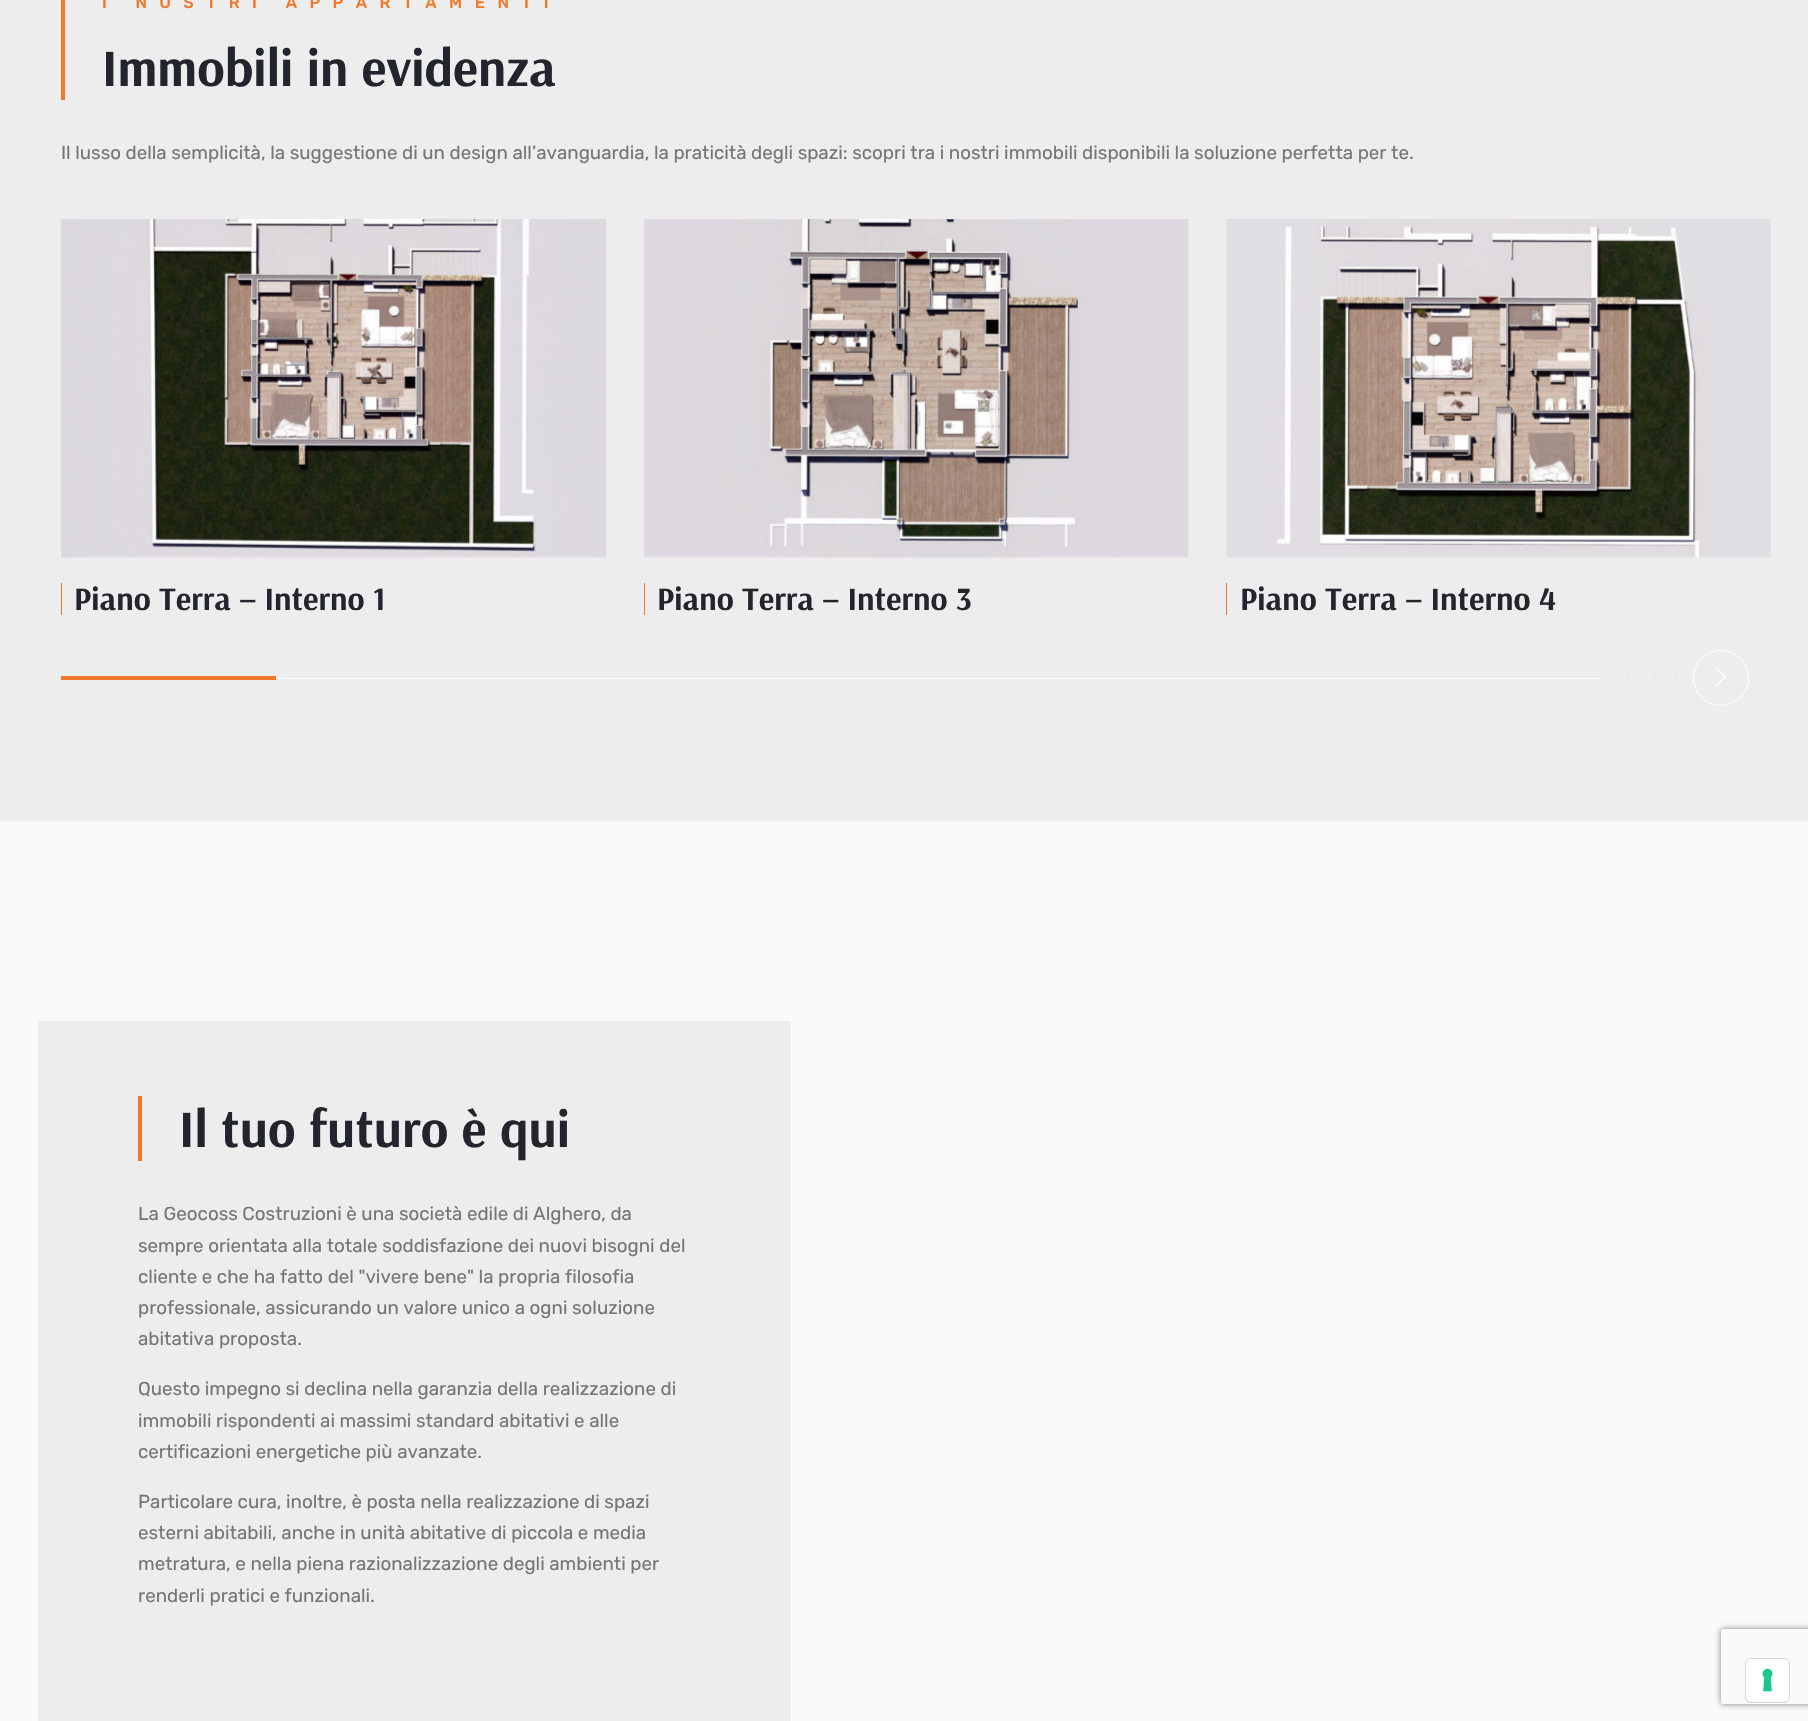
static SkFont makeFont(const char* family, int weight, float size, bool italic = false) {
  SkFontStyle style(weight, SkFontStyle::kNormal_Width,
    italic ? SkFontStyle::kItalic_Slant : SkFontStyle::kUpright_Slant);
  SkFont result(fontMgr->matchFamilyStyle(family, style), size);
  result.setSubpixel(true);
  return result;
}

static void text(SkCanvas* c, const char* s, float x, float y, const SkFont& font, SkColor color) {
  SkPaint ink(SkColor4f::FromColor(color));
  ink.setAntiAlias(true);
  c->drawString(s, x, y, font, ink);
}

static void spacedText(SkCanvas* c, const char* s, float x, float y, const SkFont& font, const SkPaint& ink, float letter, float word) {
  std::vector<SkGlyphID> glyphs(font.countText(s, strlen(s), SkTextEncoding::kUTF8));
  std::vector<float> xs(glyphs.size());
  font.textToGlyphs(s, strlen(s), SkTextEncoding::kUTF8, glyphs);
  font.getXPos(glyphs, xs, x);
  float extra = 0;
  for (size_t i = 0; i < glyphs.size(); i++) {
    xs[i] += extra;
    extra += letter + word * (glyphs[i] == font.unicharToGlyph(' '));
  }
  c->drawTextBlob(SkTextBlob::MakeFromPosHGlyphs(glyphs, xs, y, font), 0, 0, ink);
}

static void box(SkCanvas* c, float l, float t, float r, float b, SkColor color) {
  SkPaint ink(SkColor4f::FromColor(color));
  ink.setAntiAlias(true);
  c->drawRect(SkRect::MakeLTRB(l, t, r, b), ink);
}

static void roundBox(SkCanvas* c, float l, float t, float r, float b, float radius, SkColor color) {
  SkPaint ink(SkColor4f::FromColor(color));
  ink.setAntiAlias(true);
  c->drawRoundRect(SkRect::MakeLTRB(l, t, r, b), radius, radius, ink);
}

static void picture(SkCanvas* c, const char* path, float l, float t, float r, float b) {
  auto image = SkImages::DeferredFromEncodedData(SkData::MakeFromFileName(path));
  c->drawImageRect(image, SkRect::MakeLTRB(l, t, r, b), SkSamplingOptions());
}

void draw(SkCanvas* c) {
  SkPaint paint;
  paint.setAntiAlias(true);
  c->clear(0xfffbfaf8);
  box(c, 0, 0, 1808, 821, 0xffededed);
  box(c, 61, 0, 65, 100, 0xfff3782a);
  SkFont face1 = makeFont("Rubik", 500, 16.25f);
  paint.setColor(0xfff3782a);
  spacedText(c, "I NOSTRI APPARTAMENTI", 102, 8, face1, paint, 12.5f, 0);
  SkFont face2 = makeFont("Arsenal", 700, 52.5f);
  text(c, "Immobili in evidenza", 102, 86, face2, 0xff22252c);
  SkFont face3 = makeFont("Rubik", 400, 18.75f);
  text(c, "Il lusso della semplicità, la suggestione di un design all’avanguardia, la praticità degli spazi: scopri tra i nostri immobili disponibili la soluzione perfetta per te.", 61, 159, face3, 0xff767676);
  picture(c, "img_01.png", 61, 219, 607, 558);
  box(c, 61, 583, 62, 615, 0xfff3782a);
  SkFont face4 = makeFont("Arsenal", 700, 32.5f);
  text(c, "Piano Terra – Interno 1", 74, 610, face4, 0xff22252c);
  picture(c, "img_02.png", 644, 219, 1189, 558);
  box(c, 644, 583, 645, 615, 0xfff3782a);
  text(c, "Piano Terra – Interno 3", 657, 610, face4, 0xff22252c);
  picture(c, "img_03.png", 1226, 219, 1771, 558);
  box(c, 1226, 583, 1227, 615, 0xfff3782a);
  text(c, "Piano Terra – Interno 4", 1240, 610, face4, 0xff22252c);
  roundBox(c, 61, 678, 1599, 679, 0.5f, 0xffffffff);
  box(c, 61, 676, 276, 680, 0xfff3782a);
  paint.setStyle(SkPaint::kStroke_Style);
  paint.setStrokeWidth(1);
  paint.setColor(0xfff2f2f2);
  c->drawCircle(1652, 678, 27.5f, paint);
  picture(c, "img_04.png", 1647, 667, 1657, 686);
  paint.setColor(0xffffffff);
  c->drawCircle(1721, 678, 27.5f, paint);
  picture(c, "img_05.png", 1715, 667, 1726, 687);
  box(c, 38, 1021, 791, 1721, 0xffededed);
  box(c, 138, 1096, 142, 1161, 0xfff3782a);
  text(c, "Il tuo futuro è qui", 179, 1147, face2, 0xff22252c);
  text(c, "La Geocoss Costruzioni è una società edile di Alghero, da", 138, 1220, face3, 0xff767676);
  text(c, "sempre orientata alla totale soddisfazione dei nuovi bisogni del", 138, 1252, face3, 0xff767676);
  text(c, "cliente e che ha fatto del \"vivere bene\" la propria filosofia", 138, 1283, face3, 0xff767676);
  text(c, "professionale, assicurando un valore unico a ogni soluzione", 138, 1314, face3, 0xff767676);
  text(c, "abitativa proposta.", 138, 1345, face3, 0xff767676);
  text(c, "Questo impegno si declina nella garanzia della realizzazione di", 138, 1395, face3, 0xff767676);
  text(c, "immobili rispondenti ai massimi standard abitativi e alle", 138, 1427, face3, 0xff767676);
  text(c, "certificazioni energetiche più avanzate.", 138, 1458, face3, 0xff767676);
  text(c, "Particolare cura, inoltre, è posta nella realizzazione di spazi", 138, 1508, face3, 0xff767676);
  text(c, "esterni abitabili, anche in unità abitative di piccola e media", 138, 1539, face3, 0xff767676);
  text(c, "metratura, e nella piena razionalizzazione degli ambienti per", 138, 1570, face3, 0xff767676);
  text(c, "renderli pratici e funzionali.", 138, 1602, face3, 0xff767676);
  c->save();
  c->clipPath(SkPathBuilder(SkPathFillType::kEvenOdd).moveTo(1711, 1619).lineTo(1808, 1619).lineTo(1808, 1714).lineTo(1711, 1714).close().moveTo(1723.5f, 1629).lineTo(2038.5f, 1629).cubicTo(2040, 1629, 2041, 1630, 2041, 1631.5f).lineTo(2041, 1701.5f).cubicTo(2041, 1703, 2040, 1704, 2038.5f, 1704).lineTo(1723.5f, 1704).cubicTo(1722, 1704, 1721, 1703, 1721, 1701.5f).lineTo(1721, 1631.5f).cubicTo(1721, 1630, 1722, 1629, 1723.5f, 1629).close().detach(), true);
  paint.setStyle(SkPaint::kFill_Style);
  paint.setColor(0xff808080);
  paint.setMaskFilter(SkMaskFilter::MakeBlur(kNormal_SkBlurStyle, 3));
  c->drawRoundRect(SkRect::MakeLTRB(1721, 1629, 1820, 1704), 2.5f, 2.5f, paint);
  paint.setMaskFilter(nullptr);
  c->restore();
  paint.setStyle(SkPaint::kStroke_Style);
  paint.setColor(0xffd5d5d3);
  c->drawRoundRect(SkRect::MakeLTRB(1745.5f, 1658.5f, 1789.5f, 1702.5f), 5.5f, 5.5f, paint);
  roundBox(c, 1746, 1659, 1789, 1701, 5, 0xffffffff);
  picture(c, "img_06.png", 1762, 1668, 1773, 1692);
}
